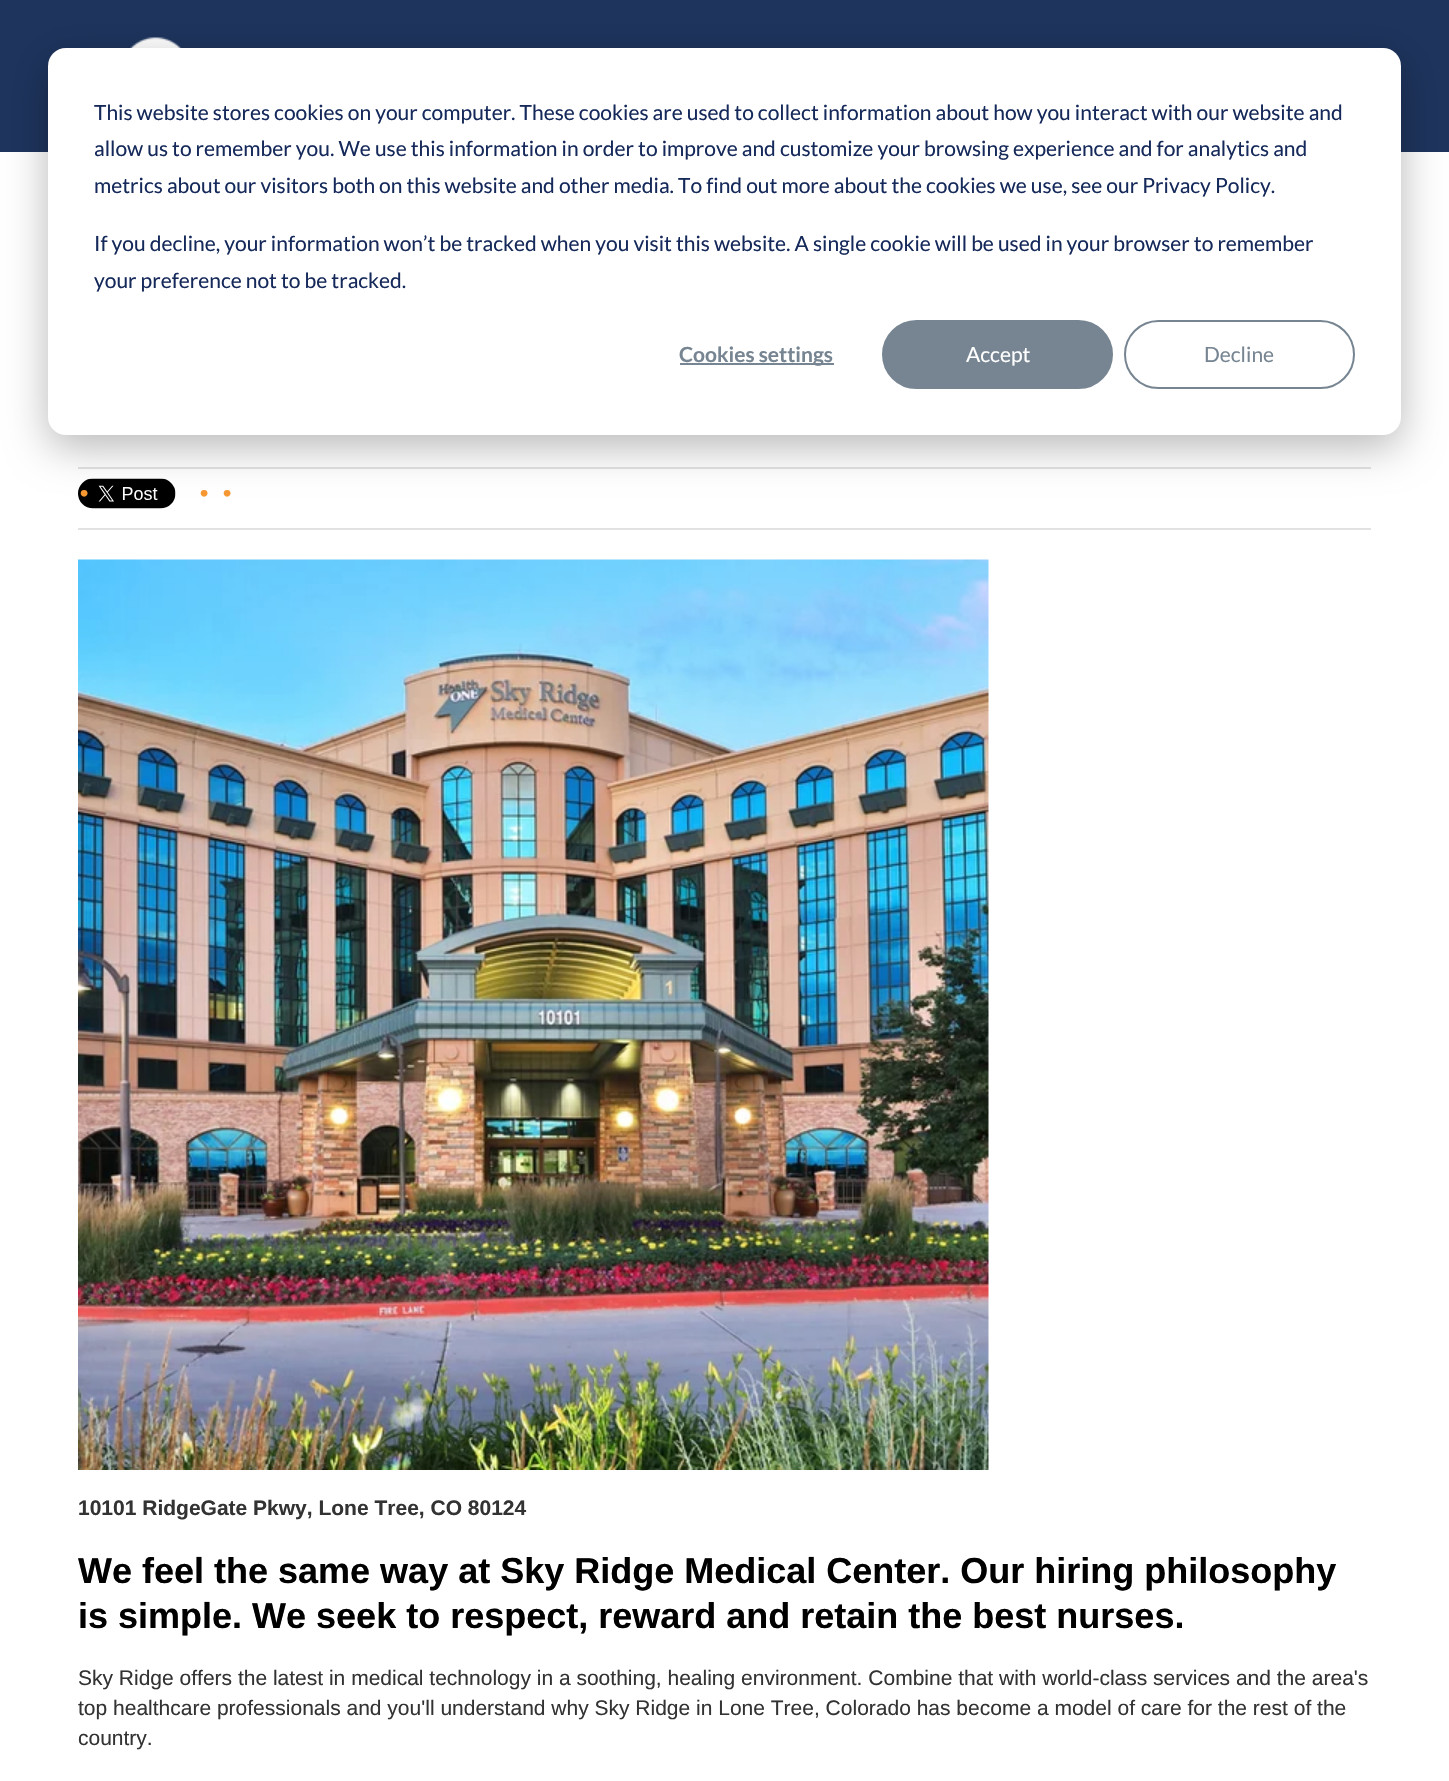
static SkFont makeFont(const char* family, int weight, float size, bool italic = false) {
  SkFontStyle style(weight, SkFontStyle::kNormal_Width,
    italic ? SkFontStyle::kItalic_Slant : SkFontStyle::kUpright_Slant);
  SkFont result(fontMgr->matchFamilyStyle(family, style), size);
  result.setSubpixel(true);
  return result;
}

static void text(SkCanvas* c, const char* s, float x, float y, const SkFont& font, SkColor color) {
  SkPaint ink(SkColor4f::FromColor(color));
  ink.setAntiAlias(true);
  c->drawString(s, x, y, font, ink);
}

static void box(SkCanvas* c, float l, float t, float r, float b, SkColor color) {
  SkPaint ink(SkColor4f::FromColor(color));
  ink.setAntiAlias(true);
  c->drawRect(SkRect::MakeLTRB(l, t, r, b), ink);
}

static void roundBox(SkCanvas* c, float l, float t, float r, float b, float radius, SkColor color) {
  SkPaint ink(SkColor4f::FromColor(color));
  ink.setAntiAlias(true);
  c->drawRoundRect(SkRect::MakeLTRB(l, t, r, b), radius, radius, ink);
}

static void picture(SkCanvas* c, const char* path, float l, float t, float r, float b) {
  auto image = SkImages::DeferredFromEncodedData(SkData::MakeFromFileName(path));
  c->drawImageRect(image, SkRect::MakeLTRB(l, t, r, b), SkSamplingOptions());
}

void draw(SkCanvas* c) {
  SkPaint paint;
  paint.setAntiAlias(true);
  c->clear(0xff1e345d);
  picture(c, "img_01.png", 130, 37, 182, 48);
  box(c, 0, 152, 1449, 1781, 0xffffffff);
  box(c, 78, 467, 1371, 469, 0xffe2e2e2);
  picture(c, "img_02.png", 78, 478, 176, 509);
  paint.setColor(0x47000000);
  paint.setMaskFilter(SkMaskFilter::MakeBlur(kNormal_SkBlurStyle, 21));
  c->drawRoundRect(SkRect::MakeLTRB(48, 60, 1401, 447), 18, 18, paint);
  paint.setMaskFilter(nullptr);
  roundBox(c, 48, 48, 1401, 435, 18, 0xffffffff);
  SkFont face1 = makeFont("Lato", 400, 21);
  text(c, "This website stores cookies on your computer. These cookies are used to collect information about how you interact with our website and", 94, 120, face1, 0xff15295a);
  text(c, "allow us to remember you. We use this information in order to improve and customize your browsing experience and for analytics and", 94, 156, face1, 0xff15295a);
  text(c, "metrics about our visitors both on this website and other media. To find out more about the cookies we use, see our Privacy Policy.", 94, 193, face1, 0xff15295a);
  text(c, "If you decline, your information won’t be tracked when you visit this website. A single cookie will be used in your browser to remember", 94, 251, face1, 0xff15295a);
  text(c, "your preference not to be tracked.", 94, 288, face1, 0xff15295a);
  box(c, 680, 363, 834, 365, 0xff768591);
  SkFont face2 = makeFont("Lato", 700, 21);
  text(c, "Cookies settings", 679, 362, face2, 0xff768591);
  paint.setColor(0xff768591);
  c->drawRoundRect(SkRect::MakeLTRB(883, 321, 1112, 388), 33.5f, 33.5f, paint);
  paint.setStyle(SkPaint::kStroke_Style);
  paint.setStrokeWidth(2);
  c->drawRoundRect(SkRect::MakeLTRB(883, 321, 1112, 388), 33.5f, 33.5f, paint);
  text(c, "Accept", 966, 362, face1, 0xffffffff);
  c->drawRoundRect(SkRect::MakeLTRB(1125, 321, 1354, 388), 33.5f, 33.5f, paint);
  text(c, "Decline", 1204, 362, face1, 0xff768591);
  box(c, 78, 528, 1371, 530, 0xffe2e2e2);
  SkFont face3 = makeFont("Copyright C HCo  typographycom", 300, 24);
  text(c, "•", 78, 502, face3, 0xfff69731);
  text(c, "•", 198, 502, face3, 0xfff69731);
  text(c, "•", 221, 502, face3, 0xfff69731);
  picture(c, "img_03.png", 78, 559, 989, 1470);
  SkFont face4 = makeFont("Liberation Sans", 700, 21);
  text(c, "10101 RidgeGate Pkwy, Lone Tree, CO 80124", 78, 1515, face4, 0xff333333);
  SkFont face5 = makeFont("Liberation Sans", 700, 36);
  text(c, "We feel the same way at Sky Ridge Medical Center. Our hiring philosophy", 78, 1583, face5, 0xff000000);
  text(c, "is simple. We seek to respect, reward and retain the best nurses.", 78, 1628, face5, 0xff000000);
  SkFont face6 = makeFont("Liberation Sans", 400, 21);
  text(c, "Sky Ridge offers the latest in medical technology in a soothing, healing environment. Combine that with world-class services and the area's", 78, 1685, face6, 0xff333333);
  text(c, "top healthcare professionals and you'll understand why Sky Ridge in Lone Tree, Colorado has become a model of care for the rest of the", 78, 1715, face6, 0xff333333);
  text(c, "country.", 78, 1745, face6, 0xff333333);
}
